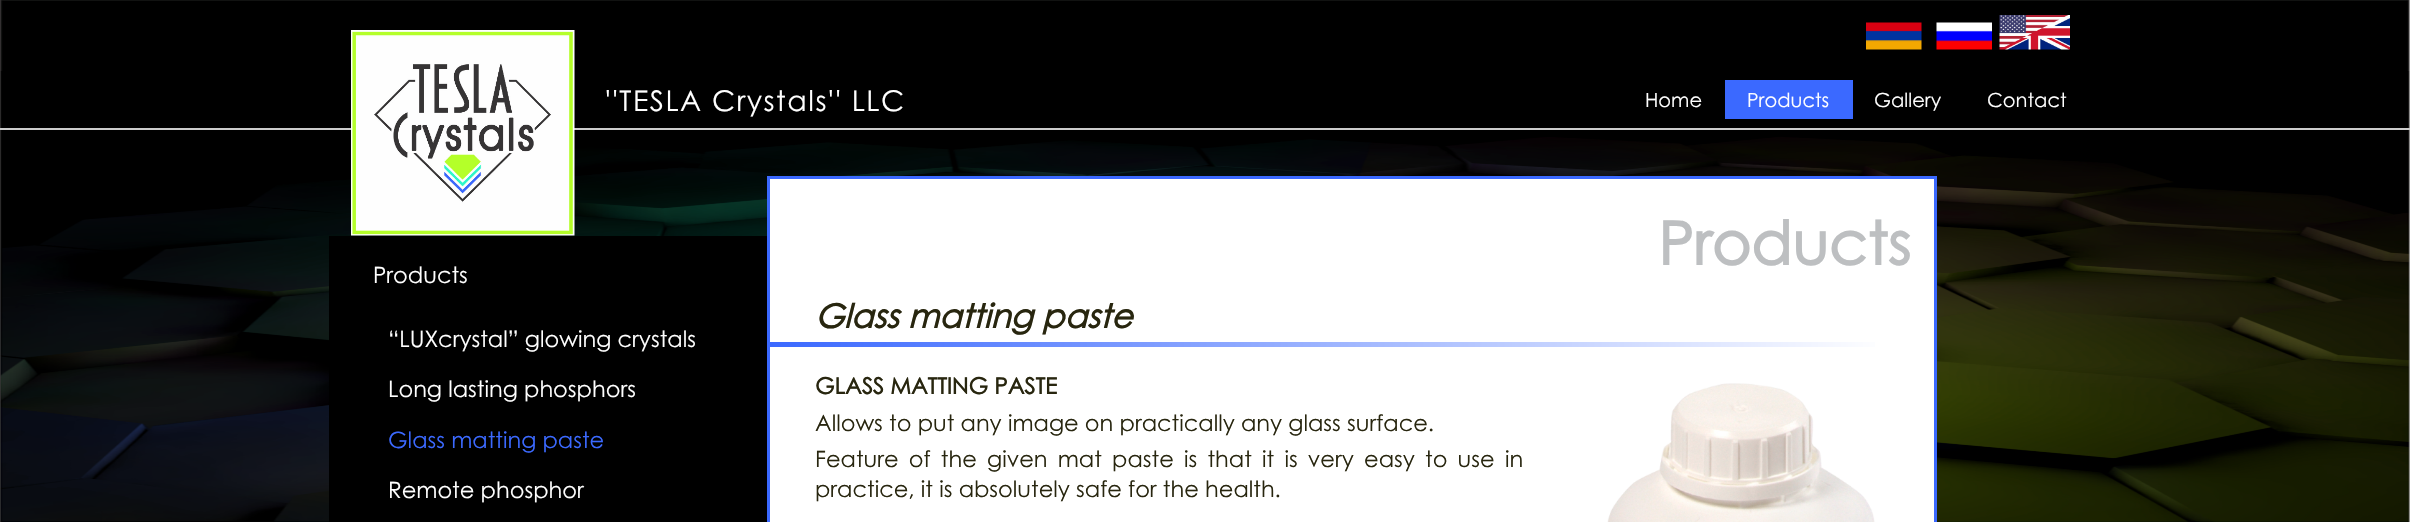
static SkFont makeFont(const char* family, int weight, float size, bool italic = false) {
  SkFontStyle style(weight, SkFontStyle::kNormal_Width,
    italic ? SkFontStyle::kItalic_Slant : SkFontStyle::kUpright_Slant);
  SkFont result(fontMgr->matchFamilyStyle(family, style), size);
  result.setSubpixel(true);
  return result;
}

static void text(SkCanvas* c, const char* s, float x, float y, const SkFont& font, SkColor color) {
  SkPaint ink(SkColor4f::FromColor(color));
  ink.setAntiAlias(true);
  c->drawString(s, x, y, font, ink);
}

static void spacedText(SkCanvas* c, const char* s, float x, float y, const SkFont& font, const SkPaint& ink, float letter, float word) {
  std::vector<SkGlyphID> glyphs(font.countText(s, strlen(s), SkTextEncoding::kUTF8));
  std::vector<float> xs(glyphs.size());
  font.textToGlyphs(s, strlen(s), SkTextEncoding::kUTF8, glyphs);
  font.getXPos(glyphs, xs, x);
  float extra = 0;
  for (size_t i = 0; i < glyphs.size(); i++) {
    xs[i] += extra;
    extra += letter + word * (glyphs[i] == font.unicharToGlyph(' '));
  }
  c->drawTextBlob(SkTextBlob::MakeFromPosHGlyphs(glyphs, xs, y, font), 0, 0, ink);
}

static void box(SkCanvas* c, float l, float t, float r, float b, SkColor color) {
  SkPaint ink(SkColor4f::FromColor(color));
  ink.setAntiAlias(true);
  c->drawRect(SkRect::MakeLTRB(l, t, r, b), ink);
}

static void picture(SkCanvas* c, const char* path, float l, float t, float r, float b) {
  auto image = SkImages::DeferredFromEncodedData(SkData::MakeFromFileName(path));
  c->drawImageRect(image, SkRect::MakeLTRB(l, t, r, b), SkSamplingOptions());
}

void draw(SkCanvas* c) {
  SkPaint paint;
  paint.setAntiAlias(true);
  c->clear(0xffffffff);
  picture(c, "img_01.png", 0, 0, 2410, 522);
  box(c, 0, 128, 2410, 130, 0xffcccccc);
  picture(c, "img_02.png", 351, 30, 575, 236);
  SkFont face1 = makeFont("Century Gothic", 400, 28.5f);
  paint.setColor(0xffffffff);
  spacedText(c, "''TESLA Crystals'' LLC", 605, 111, face1, paint, 1.5f, 0);
  picture(c, "img_03.png", 1866, 22, 1922, 50);
  picture(c, "img_04.png", 1936, 22, 1992, 50);
  picture(c, "img_05.png", 1999, 15, 2070, 50);
  SkFont face2 = makeFont("Century Gothic", 400, 19.5f);
  text(c, "Home", 1645, 107, face2, 0xffffffff);
  box(c, 1725, 80, 1853, 119, 0xff3b69ff);
  text(c, "Products", 1747, 107, face2, 0xffffffff);
  text(c, "Gallery", 1874, 107, face2, 0xffffffff);
  text(c, "Contact", 1987, 107, face2, 0xffffffff);
  box(c, 329, 236, 767, 522, 0xff000000);
  SkFont face3 = makeFont("Century Gothic", 400, 22.5f);
  text(c, "Products", 373, 283, face3, 0xffffffff);
  text(c, "“LUXcrystal” glowing crystals", 388, 347, face3, 0xffffffff);
  text(c, "Long lasting phosphors", 388, 397, face3, 0xffffffff);
  text(c, "Glass matting paste", 388, 448, face3, 0xff3b69ff);
  text(c, "Remote phosphor", 388, 498, face3, 0xffffffff);
  c->drawRect(SkRect::MakeLTRB(768.5f, 177.5f, 1935.5f, 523.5f), paint);
  paint.setStyle(SkPaint::kStroke_Style);
  paint.setStrokeWidth(3);
  paint.setColor(0xff3b69ff);
  c->drawRect(SkRect::MakeLTRB(768.5f, 177.5f, 1935.5f, 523.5f), paint);
  SkFont face4 = makeFont("Century Gothic", 700, 60);
  text(c, "Products", 1658, 265, face4, 0xffbdbfc1);
  SkFont face5 = makeFont("Century Gothic", 700, 33, true);
  text(c, "Glass matting paste", 815, 328, face5, 0xff28260f);
  paint.setStyle(SkPaint::kFill_Style);
  {
    const SkColor colors[] = {0xff3b69ff, 0xffffffff};
    const float stops[] = {0, 1};
    const SkPoint ends[] = {{770, 344}, {1889, 344}};
    paint.setShader(SkGradientShader::MakeLinear(ends, colors, stops, 2, SkTileMode::kClamp));
    paint.setAlpha(255);
  }
  c->drawRect(SkRect::MakeLTRB(770, 342, 1875, 347), paint);
  SkFont face6 = makeFont("Century Gothic", 700, 22.5f);
  text(c, "GLASS MATTING PASTE", 815, 394, face6, 0xff28260f);
  text(c, "Allows to put any image on practically any glass surface.", 815, 431, face3, 0xff28260f);
  paint.setShader(nullptr);
  paint.setColor(0xff28260f);
  spacedText(c, "Feature of the given mat paste is that it is very easy to use in", 815, 467, face3, paint, 0, 4);
  text(c, "practice, it is absolutely safe for the health.", 815, 497, face3, 0xff28260f);
  picture(c, "img_06.png", 1607, 383, 1875, 522);
}
